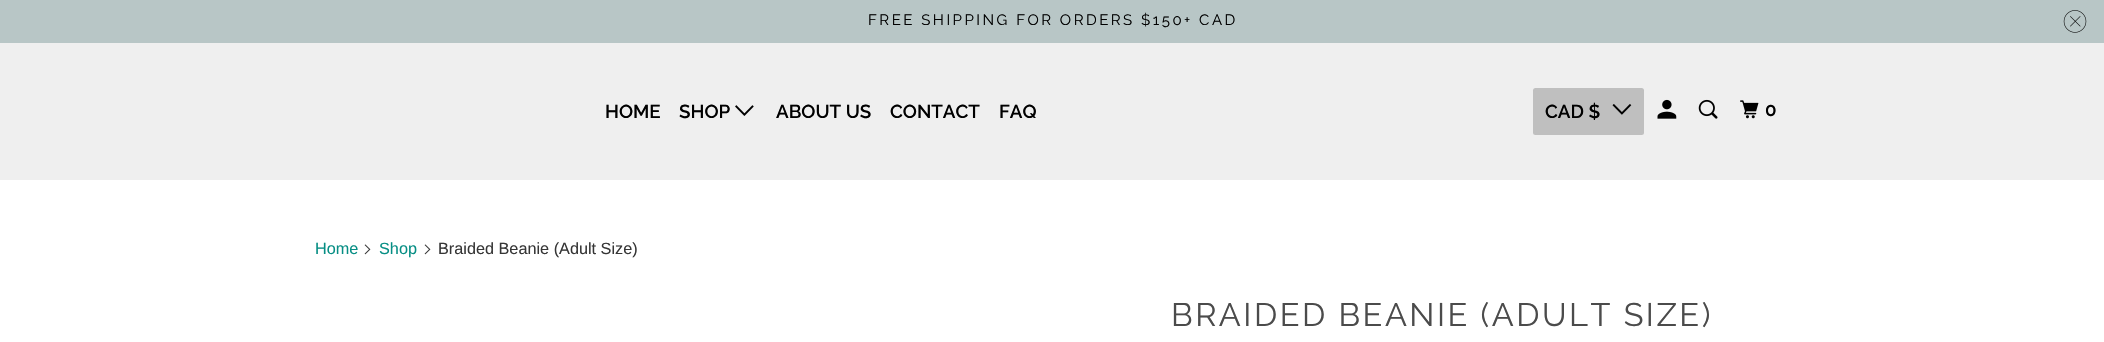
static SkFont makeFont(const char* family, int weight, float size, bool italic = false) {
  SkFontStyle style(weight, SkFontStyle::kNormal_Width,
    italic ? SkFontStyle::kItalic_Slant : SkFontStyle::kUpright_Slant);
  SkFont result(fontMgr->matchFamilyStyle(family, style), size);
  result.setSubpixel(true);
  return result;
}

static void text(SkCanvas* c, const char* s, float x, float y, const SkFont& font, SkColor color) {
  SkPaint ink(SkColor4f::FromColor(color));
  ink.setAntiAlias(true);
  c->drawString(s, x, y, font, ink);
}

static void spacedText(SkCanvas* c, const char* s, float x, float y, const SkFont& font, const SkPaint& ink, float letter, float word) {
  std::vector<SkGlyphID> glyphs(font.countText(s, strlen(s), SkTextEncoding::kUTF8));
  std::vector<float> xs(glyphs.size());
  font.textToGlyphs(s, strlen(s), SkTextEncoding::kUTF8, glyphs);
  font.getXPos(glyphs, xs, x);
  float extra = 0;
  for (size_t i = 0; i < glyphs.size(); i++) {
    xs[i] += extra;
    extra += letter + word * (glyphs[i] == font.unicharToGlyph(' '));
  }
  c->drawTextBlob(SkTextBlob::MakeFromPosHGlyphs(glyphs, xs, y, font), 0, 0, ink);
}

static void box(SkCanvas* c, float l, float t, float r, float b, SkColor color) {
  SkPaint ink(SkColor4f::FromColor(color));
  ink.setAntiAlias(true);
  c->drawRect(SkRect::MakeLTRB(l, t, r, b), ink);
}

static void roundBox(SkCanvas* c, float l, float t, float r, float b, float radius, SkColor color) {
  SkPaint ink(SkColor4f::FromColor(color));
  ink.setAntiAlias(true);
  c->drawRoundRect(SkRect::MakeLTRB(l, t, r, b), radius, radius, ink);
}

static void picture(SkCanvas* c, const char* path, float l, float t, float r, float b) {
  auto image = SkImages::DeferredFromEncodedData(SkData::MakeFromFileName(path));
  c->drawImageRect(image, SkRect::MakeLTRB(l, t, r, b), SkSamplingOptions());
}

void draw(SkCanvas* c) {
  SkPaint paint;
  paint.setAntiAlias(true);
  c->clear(0xffffffff);
  box(c, 0, 0, 2104, 43, 0xffb8c6c6);
  SkFont face1 = makeFont("Raleway", 400, 15);
  paint.setColor(0xff000000);
  spacedText(c, "FREE SHIPPING FOR ORDERS $150+ CAD", 868, 25, face1, paint, 2.5f, 0);
  picture(c, "img_01.png", 2063, 10, 2087, 33);
  box(c, 0, 43, 2104, 180, 0xffefefef);
  SkFont face2 = makeFont("Raleway", 600, 18.75f);
  text(c, "HOME", 605, 118, face2, 0xff000000);
  text(c, "SHOP", 679, 118, face2, 0xff000000);
  picture(c, "img_02.png", 735, 105, 754, 116);
  text(c, "ABOUT US", 776, 118, face2, 0xff000000);
  text(c, "CONTACT", 890, 118, face2, 0xff000000);
  text(c, "FAQ", 999, 118, face2, 0xff000000);
  roundBox(c, 1533, 88, 1644, 135, 2.5f, 0xffbfbfbf);
  text(c, "CAD $", 1545, 118, face2, 0xff000000);
  picture(c, "img_03.png", 1612, 104, 1632, 115);
  picture(c, "img_04.png", 1657, 99, 1677, 119);
  picture(c, "img_05.png", 1698, 99, 1718, 119);
  picture(c, "img_06.png", 1740, 100, 1759, 119);
  text(c, "0", 1765, 116, face2, 0xff000000);
  SkFont face3 = makeFont("Liberation Sans", 400, 16.25f);
  text(c, "Home", 315, 254, face3, 0xff068e84);
  picture(c, "img_07.png", 364, 244, 371, 255);
  text(c, "Shop", 379, 254, face3, 0xff068e84);
  picture(c, "img_07.png", 424, 244, 431, 255);
  text(c, "Braided Beanie (Adult Size)", 438, 254, face3, 0xff363636);
  SkFont face4 = makeFont("Raleway", 400, 32.5f);
  paint.setColor(0xff4b4b4b);
  spacedText(c, "BRAIDED BEANIE (ADULT SIZE)", 1171, 326, face4, paint, 2.5f, 0);
}
